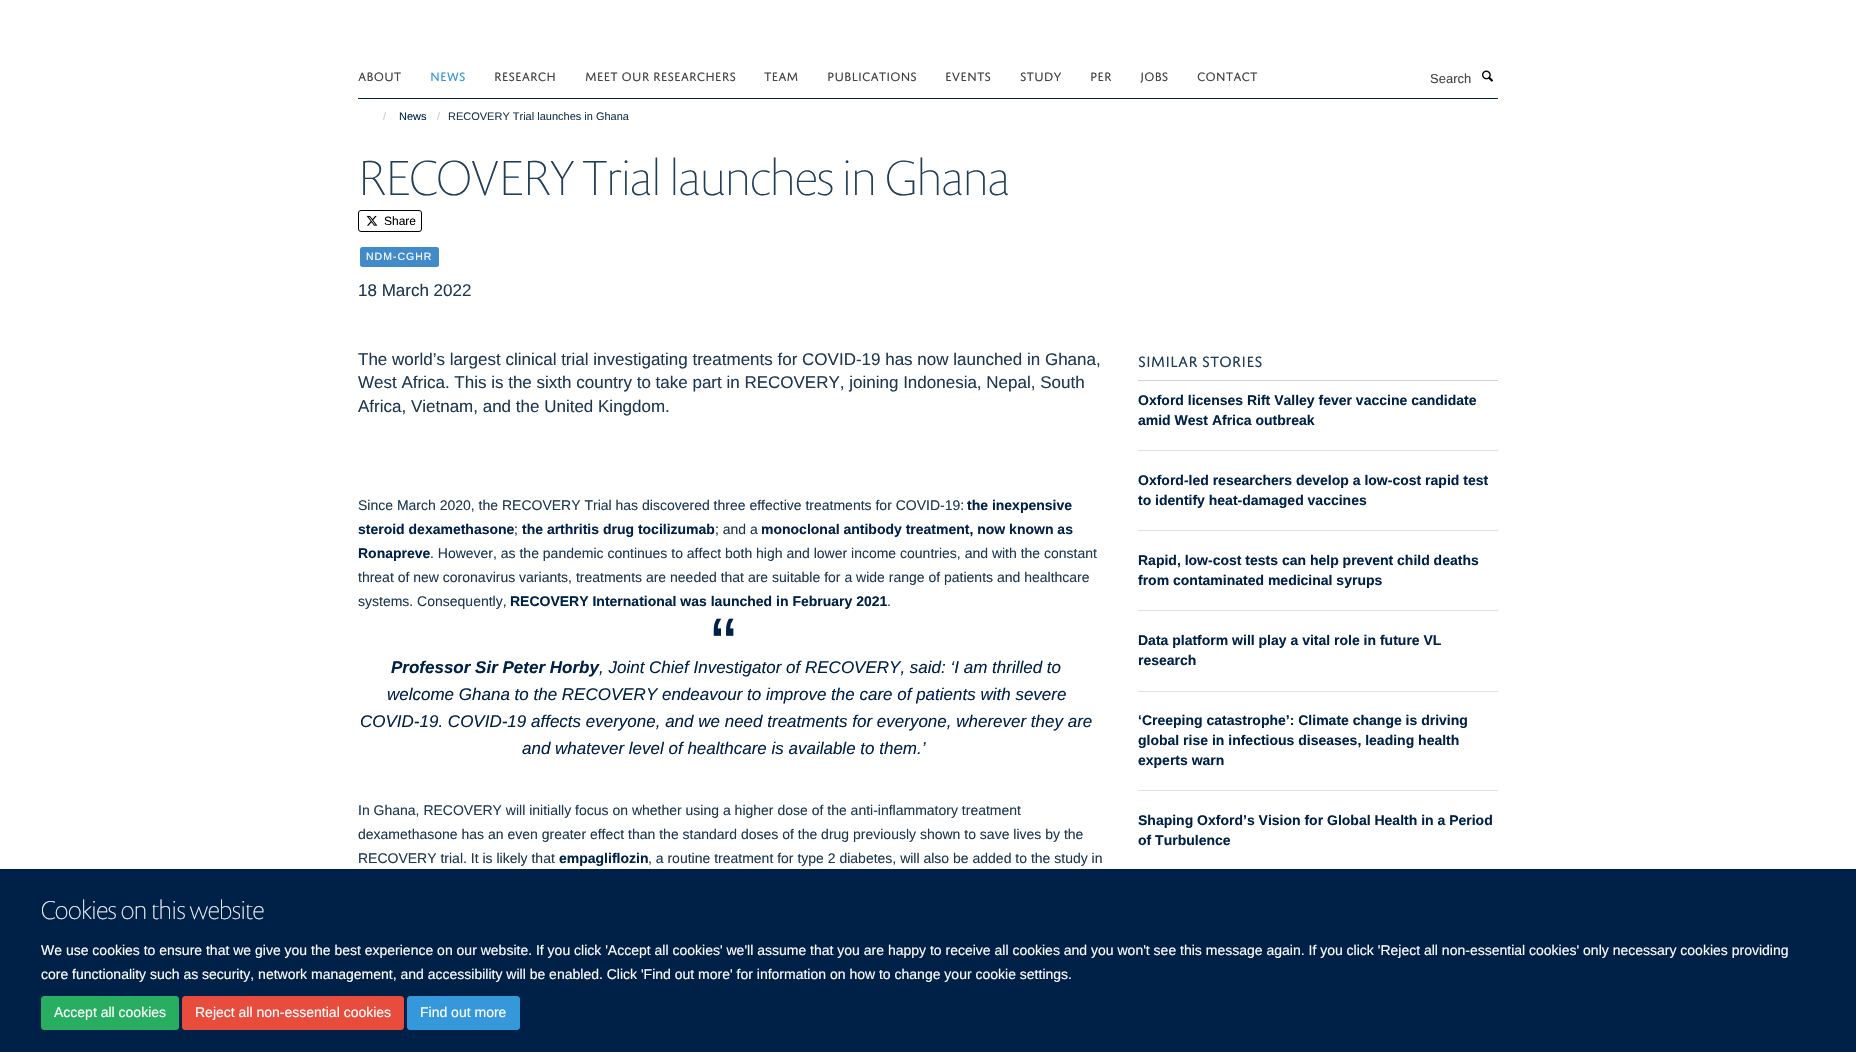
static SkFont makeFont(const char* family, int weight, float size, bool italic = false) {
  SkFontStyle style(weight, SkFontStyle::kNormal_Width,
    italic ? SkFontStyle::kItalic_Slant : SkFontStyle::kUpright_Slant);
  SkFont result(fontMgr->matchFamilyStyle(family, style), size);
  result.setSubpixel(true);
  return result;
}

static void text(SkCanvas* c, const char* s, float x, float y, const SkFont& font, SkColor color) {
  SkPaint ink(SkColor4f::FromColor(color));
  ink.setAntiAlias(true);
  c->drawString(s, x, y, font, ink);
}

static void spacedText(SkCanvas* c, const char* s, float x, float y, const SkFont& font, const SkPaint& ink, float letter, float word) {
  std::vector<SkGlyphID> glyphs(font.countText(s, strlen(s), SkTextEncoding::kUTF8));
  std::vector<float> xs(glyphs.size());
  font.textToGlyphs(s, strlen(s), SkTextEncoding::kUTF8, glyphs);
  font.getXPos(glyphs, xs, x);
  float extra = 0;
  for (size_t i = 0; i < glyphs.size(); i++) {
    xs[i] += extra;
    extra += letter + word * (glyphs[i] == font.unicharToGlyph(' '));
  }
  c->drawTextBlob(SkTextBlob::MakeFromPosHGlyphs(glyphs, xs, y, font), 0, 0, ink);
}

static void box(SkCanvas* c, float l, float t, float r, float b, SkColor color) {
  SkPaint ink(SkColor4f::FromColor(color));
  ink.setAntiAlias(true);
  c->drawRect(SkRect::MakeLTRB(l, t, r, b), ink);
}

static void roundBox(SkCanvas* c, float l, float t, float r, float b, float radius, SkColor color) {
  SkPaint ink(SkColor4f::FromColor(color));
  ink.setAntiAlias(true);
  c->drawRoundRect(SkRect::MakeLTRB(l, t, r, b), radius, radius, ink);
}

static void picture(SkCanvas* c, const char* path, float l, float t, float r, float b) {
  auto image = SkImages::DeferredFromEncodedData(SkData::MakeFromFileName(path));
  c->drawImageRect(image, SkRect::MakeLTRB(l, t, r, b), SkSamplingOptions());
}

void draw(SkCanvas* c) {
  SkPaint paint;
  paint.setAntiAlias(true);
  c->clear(0xffffffff);
  box(c, 358, 98, 1498, 99, 0xff002147);
  SkFont face1 = makeFont("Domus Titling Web", 400, 13);
  text(c, "ABOUT", 358, 81, face1, 0xff444444);
  text(c, "NEWS", 430, 81, face1, 0xff3498db);
  text(c, "RESEARCH", 494, 81, face1, 0xff444444);
  text(c, "MEET OUR RESEARCHERS", 585, 81, face1, 0xff444444);
  text(c, "TEAM", 764, 81, face1, 0xff444444);
  text(c, "PUBLICATIONS", 827, 81, face1, 0xff444444);
  text(c, "EVENTS", 945, 81, face1, 0xff444444);
  text(c, "STUDY", 1020, 81, face1, 0xff444444);
  text(c, "PER", 1090, 81, face1, 0xff444444);
  text(c, "JOBS", 1140, 81, face1, 0xff444444);
  text(c, "CONTACT", 1197, 81, face1, 0xff444444);
  SkFont face2 = makeFont("Liberation Sans", 400, 13);
  text(c, "Search", 1430, 83, face2, 0xff444444);
  picture(c, "img_01.png", 1482, 70, 1493, 82);
  SkFont face3 = makeFont("Liberation Sans", 400, 11);
  text(c, "/", 383, 120, face3, 0xffcccccc);
  text(c, "News", 399, 120, face3, 0xff002147);
  text(c, "/", 437, 120, face3, 0xffcccccc);
  text(c, "RECOVERY Trial launches in Ghana", 448, 120, face3, 0xff1d3850);
  SkFont face4 = makeFont("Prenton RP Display", 100, 50);
  text(c, "RECOVERY Trial launches in Ghana", 358, 195, face4, 0xff203e58);
  paint.setStyle(SkPaint::kStroke_Style);
  paint.setStrokeWidth(1);
  paint.setColor(0xff000000);
  c->drawRoundRect(SkRect::MakeLTRB(358.5f, 210.5f, 421.5f, 231.5f), 2.5f, 2.5f, paint);
  picture(c, "img_02.png", 366, 215, 378, 226);
  SkFont face5 = makeFont("Liberation Sans", 400, 12);
  text(c, "Share", 384, 225, face5, 0xff000000);
  roundBox(c, 360, 247, 439, 267, 2.5f, 0xff428bca);
  SkFont face6 = makeFont("Liberation Sans", 400, 10.5f);
  paint.setStyle(SkPaint::kFill_Style);
  paint.setColor(0xffffffff);
  spacedText(c, "NDM-CGHR", 366, 260, face6, paint, 1, 0);
  SkFont face7 = makeFont("Liberation Sans", 400, 17);
  text(c, "18 March 2022", 358, 296, face7, 0xff1d3850);
  text(c, "The world’s largest clinical trial investigating treatments for COVID-19 has now launched in Ghana,", 358, 365, face7, 0xff1d3850);
  text(c, "West Africa. This is the sixth country to take part in RECOVERY, joining Indonesia, Nepal, South", 358, 388, face7, 0xff1d3850);
  text(c, "Africa, Vietnam, and the United Kingdom.", 358, 412, face7, 0xff1d3850);
  SkFont face8 = makeFont("Liberation Sans", 400, 14);
  text(c, "Since March 2020, the RECOVERY Trial has discovered three effective treatments for COVID-19:", 358, 510, face8, 0xff1d3850);
  SkFont face9 = makeFont("Liberation Sans", 700, 14);
  text(c, "the inexpensive", 967, 510, face9, 0xff002147);
  text(c, "steroid dexamethasone", 358, 534, face9, 0xff002147);
  text(c, ";", 514, 534, face8, 0xff1d3850);
  text(c, "the arthritis drug tocilizumab", 522, 534, face9, 0xff002147);
  text(c, "; and a", 715, 534, face8, 0xff1d3850);
  text(c, "monoclonal antibody treatment, now known as", 761, 534, face9, 0xff002147);
  text(c, "Ronapreve", 358, 558, face9, 0xff002147);
  text(c, ". However, as the pandemic continues to affect both high and lower income countries, and with the constant", 430, 558, face8, 0xff1d3850);
  text(c, "threat of new coronavirus variants, treatments are needed that are suitable for a wide range of patients and healthcare", 358, 582, face8, 0xff1d3850);
  text(c, "systems. Consequently,", 358, 606, face8, 0xff1d3850);
  text(c, "RECOVERY International was launched in February 2021", 510, 606, face9, 0xff002147);
  text(c, ".", 887, 606, face8, 0xff1d3850);
  SkFont face10 = makeFont("Liberation Sans", 400, 76);
  text(c, "“", 711, 671, face10, 0xff002147);
  SkFont face11 = makeFont("Liberation Sans", 700, 17, true);
  text(c, "Professor Sir Peter Horby", 391, 673, face11, 0xff002147);
  SkFont face12 = makeFont("Liberation Sans", 400, 17, true);
  text(c, ", Joint Chief Investigator of RECOVERY, said: ‘I am thrilled to", 599, 673, face12, 0xff002147);
  text(c, "welcome Ghana to the RECOVERY endeavour to improve the care of patients with severe", 387, 700, face12, 0xff002147);
  text(c, "COVID-19. COVID-19 affects everyone, and we need treatments for everyone, wherever they are", 360, 727, face12, 0xff002147);
  text(c, "and whatever level of healthcare is available to them.’", 522, 754, face12, 0xff002147);
  text(c, "In Ghana, RECOVERY will initially focus on whether using a higher dose of the anti-inflammatory treatment", 358, 815, face8, 0xff1d3850);
  text(c, "dexamethasone has an even greater effect than the standard doses of the drug previously shown to save lives by the", 358, 839, face8, 0xff1d3850);
  text(c, "RECOVERY trial. It is likely that", 358, 863, face8, 0xff1d3850);
  text(c, "empagliflozin", 559, 863, face9, 0xff002147);
  text(c, ", a routine treatment for type 2 diabetes, will also be added to the study in", 648, 863, face8, 0xff1d3850);
  box(c, 1138, 380, 1498, 381, 0xffd2d0d0);
  SkFont face13 = makeFont("Domus Titling Web", 400, 16);
  text(c, "SIMILAR STORIES", 1138, 367, face13, 0xff203e58);
  box(c, 1138, 450, 1498, 451, 0xffdfe1e4);
  text(c, "Oxford licenses Rift Valley fever vaccine candidate", 1138, 405, face9, 0xff002147);
  text(c, "amid West Africa outbreak", 1138, 425, face9, 0xff002147);
  box(c, 1138, 530, 1498, 531, 0xffdfe1e4);
  text(c, "Oxford-led researchers develop a low-cost rapid test", 1138, 485, face9, 0xff002147);
  text(c, "to identify heat-damaged vaccines", 1138, 505, face9, 0xff002147);
  box(c, 1138, 610, 1498, 611, 0xffdfe1e4);
  text(c, "Rapid, low-cost tests can help prevent child deaths", 1138, 565, face9, 0xff002147);
  text(c, "from contaminated medicinal syrups", 1138, 585, face9, 0xff002147);
  box(c, 1138, 691, 1498, 692, 0xffdfe1e4);
  text(c, "Data platform will play a vital role in future VL", 1138, 645, face9, 0xff002147);
  text(c, "research", 1138, 665, face9, 0xff002147);
  box(c, 1138, 790, 1498, 791, 0xffdfe1e4);
  text(c, "‘Creeping catastrophe’: Climate change is driving", 1138, 725, face9, 0xff002147);
  text(c, "global rise in infectious diseases, leading health", 1138, 745, face9, 0xff002147);
  text(c, "experts warn", 1138, 765, face9, 0xff002147);
  text(c, "Shaping Oxford’s Vision for Global Health in a Period", 1138, 825, face9, 0xff002147);
  text(c, "of Turbulence", 1138, 845, face9, 0xff002147);
  box(c, 0, 869, 1856, 1052, 0xff002147);
  SkFont face14 = makeFont("Prenton RP Display", 100, 26);
  text(c, "Cookies on this website", 41, 919, face14, 0xffffffff);
  text(c, "We use cookies to ensure that we give you the best experience on our website. If you click 'Accept all cookies' we'll assume that you are happy to receive all cookies and you won't see this message again. If you click 'Reject all non-essential cookies' only necessary cookies providing", 41, 955, face8, 0xffffffff);
  text(c, "core functionality such as security, network management, and accessibility will be enabled. Click 'Find out more' for information on how to change your cookie settings.", 41, 979, face8, 0xffffffff);
  paint.setColor(0xff27ae60);
  c->drawRoundRect(SkRect::MakeLTRB(41.5f, 996.5f, 178.5f, 1029.5f), 2.5f, 2.5f, paint);
  paint.setStyle(SkPaint::kStroke_Style);
  c->drawRoundRect(SkRect::MakeLTRB(41.5f, 996.5f, 178.5f, 1029.5f), 2.5f, 2.5f, paint);
  text(c, "Accept all cookies", 54, 1017, face8, 0xffffffff);
  paint.setStyle(SkPaint::kFill_Style);
  paint.setColor(0xffe74c3c);
  c->drawRoundRect(SkRect::MakeLTRB(182.5f, 996.5f, 403.5f, 1029.5f), 2.5f, 2.5f, paint);
  paint.setStyle(SkPaint::kStroke_Style);
  c->drawRoundRect(SkRect::MakeLTRB(182.5f, 996.5f, 403.5f, 1029.5f), 2.5f, 2.5f, paint);
  text(c, "Reject all non-essential cookies", 195, 1017, face8, 0xffffffff);
  paint.setStyle(SkPaint::kFill_Style);
  paint.setColor(0xff3498db);
  c->drawRoundRect(SkRect::MakeLTRB(407.5f, 996.5f, 519.5f, 1029.5f), 2.5f, 2.5f, paint);
  paint.setStyle(SkPaint::kStroke_Style);
  c->drawRoundRect(SkRect::MakeLTRB(407.5f, 996.5f, 519.5f, 1029.5f), 2.5f, 2.5f, paint);
  text(c, "Find out more", 420, 1017, face8, 0xffffffff);
}
